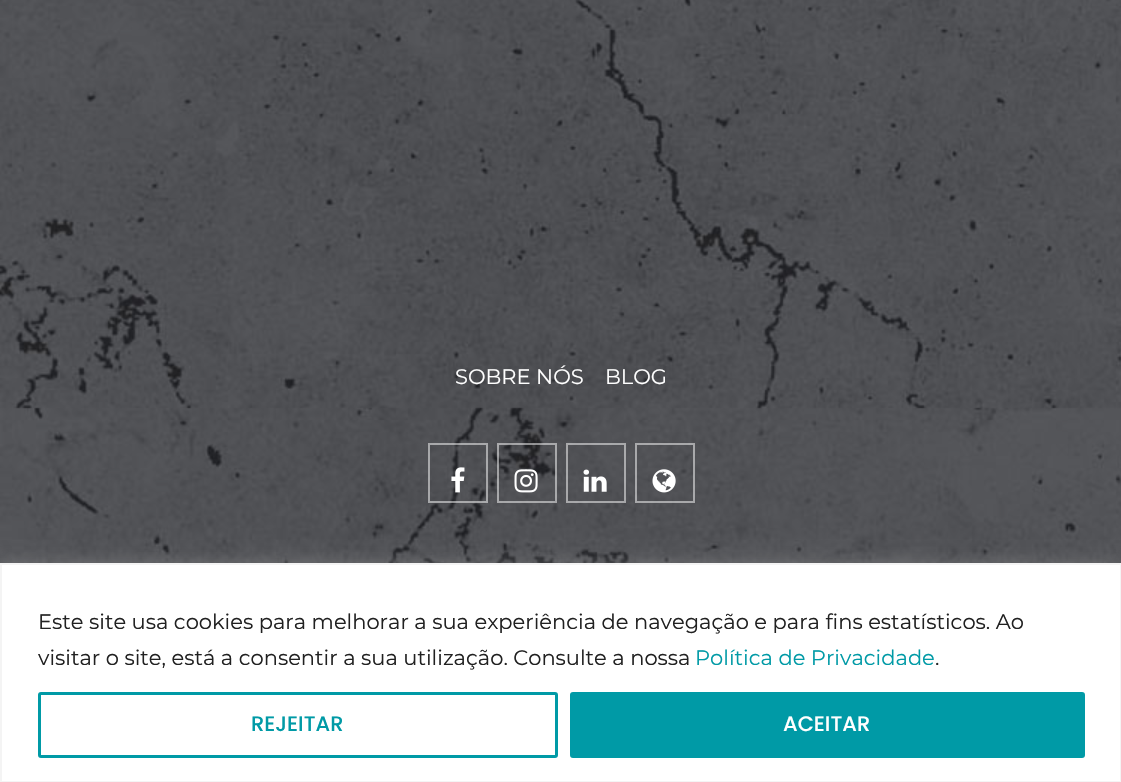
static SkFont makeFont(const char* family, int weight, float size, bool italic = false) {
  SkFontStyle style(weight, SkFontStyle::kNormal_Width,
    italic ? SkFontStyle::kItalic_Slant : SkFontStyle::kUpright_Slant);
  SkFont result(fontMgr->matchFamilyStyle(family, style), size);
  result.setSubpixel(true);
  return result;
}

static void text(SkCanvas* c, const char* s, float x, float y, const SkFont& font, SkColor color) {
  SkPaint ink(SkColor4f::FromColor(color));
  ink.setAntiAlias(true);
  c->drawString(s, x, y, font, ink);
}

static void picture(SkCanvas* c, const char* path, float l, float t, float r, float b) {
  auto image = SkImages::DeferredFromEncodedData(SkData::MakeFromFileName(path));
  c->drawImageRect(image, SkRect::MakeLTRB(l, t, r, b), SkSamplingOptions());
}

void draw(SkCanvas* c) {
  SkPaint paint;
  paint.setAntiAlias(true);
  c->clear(0xffffffff);
  picture(c, "img_01.png", 0, 0, 1121, 563);
  SkFont face1 = makeFont("Montserrat", 400, 21);
  text(c, "SOBRE NÓS", 455, 384, face1, 0xffffffff);
  text(c, "BLOG", 605, 384, face1, 0xffffffff);
  paint.setStyle(SkPaint::kStroke_Style);
  paint.setStrokeWidth(2);
  paint.setColor(0x80ffffff);
  c->drawRect(SkRect::MakeLTRB(429, 444, 487, 502), paint);
  picture(c, "img_02.png", 451, 467, 465, 493);
  c->drawRect(SkRect::MakeLTRB(498, 444, 556, 502), paint);
  picture(c, "img_03.png", 514, 469, 538, 493);
  c->drawRect(SkRect::MakeLTRB(567, 444, 625, 502), paint);
  picture(c, "img_04.png", 583, 469, 607, 492);
  c->drawRect(SkRect::MakeLTRB(636, 444, 694, 502), paint);
  picture(c, "img_05.png", 652, 469, 676, 493);
  paint.setStyle(SkPaint::kFill_Style);
  paint.setColor(0x4dacabab);
  paint.setMaskFilter(SkMaskFilter::MakeBlur(kNormal_SkBlurStyle, 7.5f));
  c->drawRect(SkRect::MakeLTRB(0, 561, 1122, 782), paint);
  paint.setMaskFilter(nullptr);
  paint.setColor(0xffffffff);
  c->drawRect(SkRect::MakeLTRB(1, 564, 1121, 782), paint);
  paint.setStyle(SkPaint::kStroke_Style);
  paint.setColor(0xfff4f4f4);
  c->drawRect(SkRect::MakeLTRB(1, 564, 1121, 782), paint);
  text(c, "Este site usa cookies para melhorar a sua experiência de navegação e para fins estatísticos. Ao", 38, 629, face1, 0xff212121);
  text(c, "visitar o site, está a consentir a sua utilização. Consulte a nossa", 38, 665, face1, 0xff212121);
  text(c, "Política de Privacidade", 695, 665, face1, 0xff009aa6);
  text(c, ".", 935, 665, face1, 0xff212121);
  paint.setStrokeWidth(3);
  paint.setColor(0xff009aa6);
  c->drawRoundRect(SkRect::MakeLTRB(39.5f, 693.5f, 556.5f, 756.5f), 1.5f, 1.5f, paint);
  SkFont face2 = makeFont("Poppins", 500, 21);
  text(c, "REJEITAR", 251, 731, face2, 0xff009aa6);
  paint.setStyle(SkPaint::kFill_Style);
  c->drawRoundRect(SkRect::MakeLTRB(571.5f, 693.5f, 1083.5f, 756.5f), 1.5f, 1.5f, paint);
  paint.setStyle(SkPaint::kStroke_Style);
  c->drawRoundRect(SkRect::MakeLTRB(571.5f, 693.5f, 1083.5f, 756.5f), 1.5f, 1.5f, paint);
  text(c, "ACEITAR", 783, 731, face2, 0xffffffff);
}
